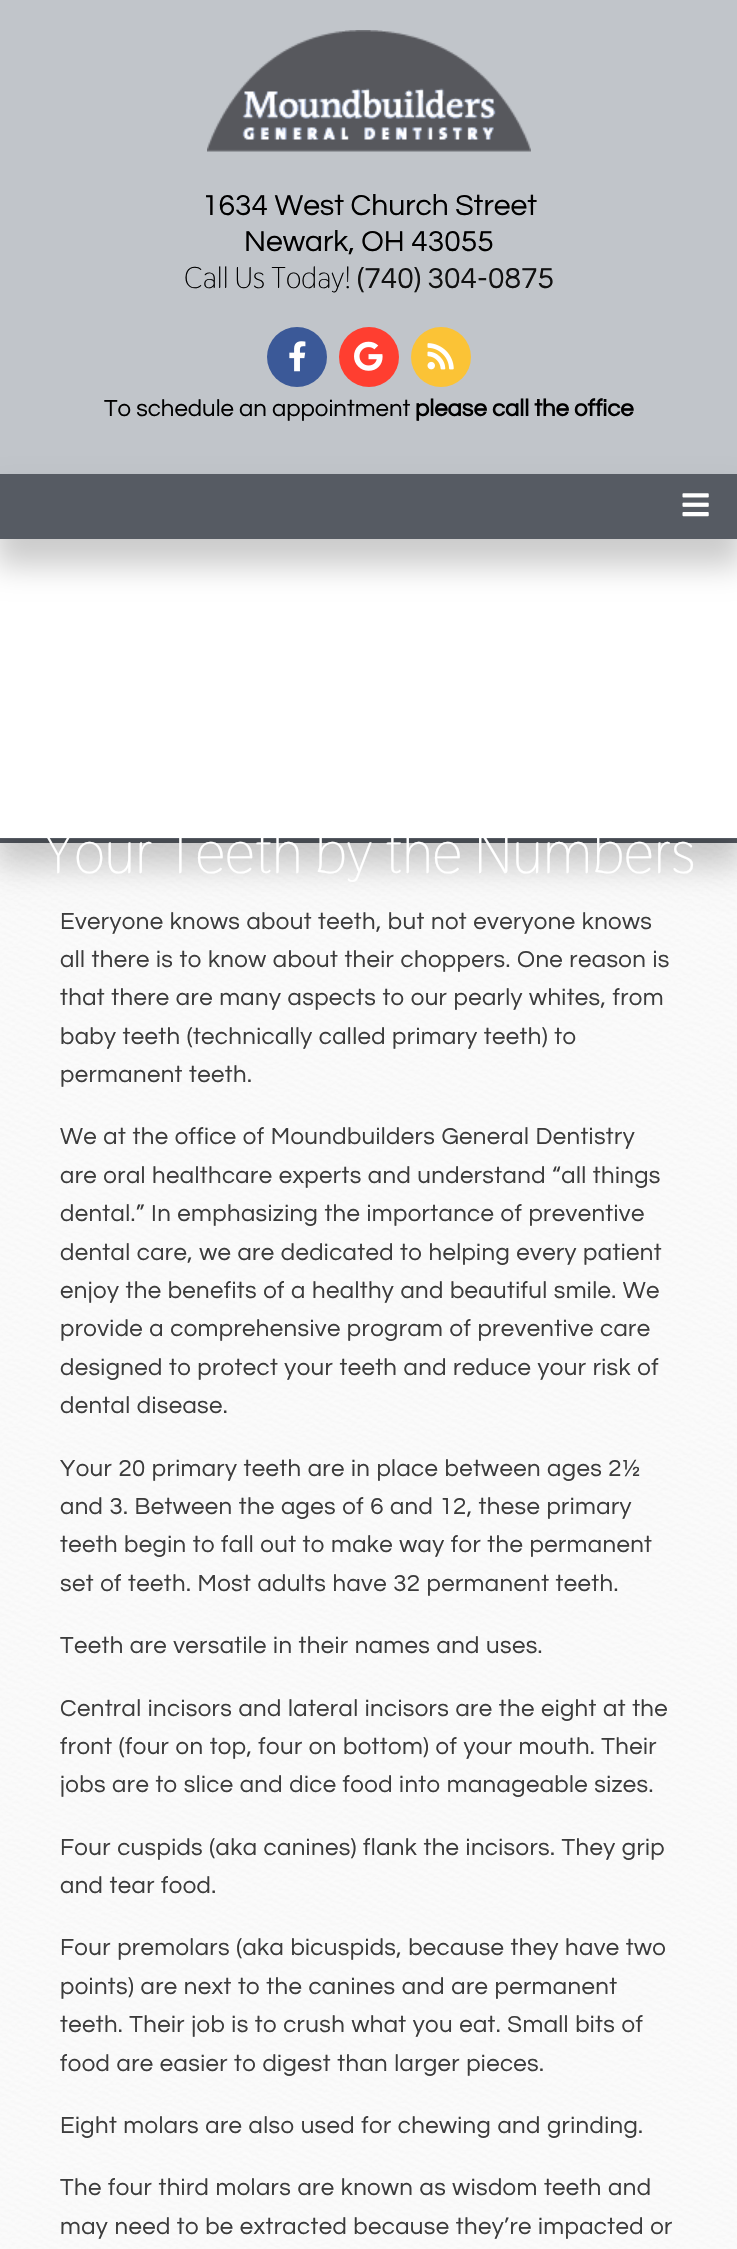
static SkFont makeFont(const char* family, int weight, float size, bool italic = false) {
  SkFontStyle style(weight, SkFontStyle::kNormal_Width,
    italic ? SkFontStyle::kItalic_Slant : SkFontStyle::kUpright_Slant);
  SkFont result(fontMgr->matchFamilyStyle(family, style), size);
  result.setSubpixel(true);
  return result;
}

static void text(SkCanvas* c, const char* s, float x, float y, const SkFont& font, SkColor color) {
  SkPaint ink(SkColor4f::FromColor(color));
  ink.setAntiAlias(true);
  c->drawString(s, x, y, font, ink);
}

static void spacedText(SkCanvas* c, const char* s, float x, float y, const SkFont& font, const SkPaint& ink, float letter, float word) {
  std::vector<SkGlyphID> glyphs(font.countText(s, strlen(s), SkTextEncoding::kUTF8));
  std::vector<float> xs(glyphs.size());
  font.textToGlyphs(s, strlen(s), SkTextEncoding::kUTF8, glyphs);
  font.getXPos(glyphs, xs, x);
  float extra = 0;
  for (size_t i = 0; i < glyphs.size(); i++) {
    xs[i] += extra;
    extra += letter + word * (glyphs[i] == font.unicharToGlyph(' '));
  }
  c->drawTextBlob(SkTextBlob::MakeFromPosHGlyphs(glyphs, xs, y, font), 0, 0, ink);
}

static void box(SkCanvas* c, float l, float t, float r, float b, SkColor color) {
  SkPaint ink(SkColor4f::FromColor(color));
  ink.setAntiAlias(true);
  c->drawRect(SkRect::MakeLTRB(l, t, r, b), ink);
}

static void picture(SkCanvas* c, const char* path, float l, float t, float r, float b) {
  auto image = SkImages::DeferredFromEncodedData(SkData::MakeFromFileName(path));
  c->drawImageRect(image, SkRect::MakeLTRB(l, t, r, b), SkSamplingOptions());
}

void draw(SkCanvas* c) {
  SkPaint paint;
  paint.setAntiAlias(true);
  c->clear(0xffffffff);
  box(c, 0, 0, 737, 474, 0xffc1c5ca);
  picture(c, "img_01.png", 207, 30, 531, 152);
  SkFont face1 = makeFont("Questrial", 400, 30);
  text(c, "1634 West Church Street", 202, 215, face1, 0xff000000);
  text(c, "Newark, OH 43055", 244, 251, face1, 0xff000000);
  SkFont face2 = makeFont("Thasadith", 400, 30);
  text(c, "Call Us Today!", 184, 288, face2, 0xff000000);
  text(c, "(740) 304-0875", 357, 288, face1, 0xff111111);
  paint.setColor(0xff3b5998);
  c->drawCircle(297, 357, 30, paint);
  picture(c, "img_02.png", 289, 341, 306, 372);
  paint.setColor(0xffff3e30);
  c->drawCircle(369, 357, 30, paint);
  picture(c, "img_03.png", 354, 341, 383, 371);
  paint.setColor(0xfffbc336);
  c->drawCircle(441, 357, 30, paint);
  picture(c, "img_04.png", 427, 343, 454, 370);
  SkFont face3 = makeFont("Questrial", 400, 24);
  text(c, "To schedule an appointment", 104, 416, face3, 0xff000000);
  SkFont face4 = makeFont("Questrial", 700, 24);
  text(c, "please call the office", 415, 416, face4, 0xff000000);
  paint.setColor(0x33000000);
  paint.setMaskFilter(SkMaskFilter::MakeBlur(kNormal_SkBlurStyle, 15));
  c->drawRect(SkRect::MakeLTRB(-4, 492, 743, 566), paint);
  paint.setMaskFilter(nullptr);
  box(c, 0, 838, 737, 843, 0xff565b63);
  picture(c, "img_06.png", 0, 843, 737, 2249);
  c->save();
  c->clipPath(SkPathBuilder(SkPathFillType::kEvenOdd).moveTo(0, 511).lineTo(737, 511).lineTo(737, 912).lineTo(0, 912).close().moveTo(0, 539).lineTo(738, 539).lineTo(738, 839).lineTo(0, 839).close().detach(), true);
  paint.setMaskFilter(SkMaskFilter::MakeBlur(kNormal_SkBlurStyle, 15));
  c->drawRect(SkRect::MakeLTRB(-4, 557, 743, 866), paint);
  paint.setMaskFilter(nullptr);
  c->restore();
  box(c, 0, 474, 737, 539, 0xff565b63);
  picture(c, "img_05.png", 682, 493, 709, 517);
  SkFont face5 = makeFont("Thasadith", 400, 60);
  text(c, "Your Teeth by the Numbers", 43, 873, face5, 0xffffffff);
  paint.setColor(0xff3c3c3c);
  spacedText(c, "Everyone knows about teeth, but not everyone knows", 60, 929, face3, paint, 0.38f, 0.75f);
  spacedText(c, "all there is to know about their choppers. One reason is", 60, 967, face3, paint, 0.38f, 0.75f);
  spacedText(c, "that there are many aspects to our pearly whites, from", 60, 1005, face3, paint, 0.38f, 0.75f);
  spacedText(c, "baby teeth (technically called primary teeth) to", 60, 1044, face3, paint, 0.38f, 0.75f);
  spacedText(c, "permanent teeth.", 60, 1082, face3, paint, 0.38f, 0.75f);
  spacedText(c, "We at the office of Moundbuilders General Dentistry", 60, 1144, face3, paint, 0.38f, 0.75f);
  spacedText(c, "are oral healthcare experts and understand “all things", 60, 1183, face3, paint, 0.38f, 0.75f);
  spacedText(c, "dental.” In emphasizing the importance of preventive", 60, 1221, face3, paint, 0.38f, 0.75f);
  spacedText(c, "dental care, we are dedicated to helping every patient", 60, 1260, face3, paint, 0.38f, 0.75f);
  spacedText(c, "enjoy the benefits of a healthy and beautiful smile. We", 60, 1298, face3, paint, 0.38f, 0.75f);
  spacedText(c, "provide a comprehensive program of preventive care", 60, 1336, face3, paint, 0.38f, 0.75f);
  spacedText(c, "designed to protect your teeth and reduce your risk of", 60, 1375, face3, paint, 0.38f, 0.75f);
  spacedText(c, "dental disease.", 60, 1413, face3, paint, 0.38f, 0.75f);
  spacedText(c, "Your 20 primary teeth are in place between ages 2½", 60, 1476, face3, paint, 0.38f, 0.75f);
  spacedText(c, "and 3. Between the ages of 6 and 12, these primary", 60, 1514, face3, paint, 0.38f, 0.75f);
  spacedText(c, "teeth begin to fall out to make way for the permanent", 60, 1552, face3, paint, 0.38f, 0.75f);
  spacedText(c, "set of teeth. Most adults have 32 permanent teeth.", 60, 1591, face3, paint, 0.38f, 0.75f);
  spacedText(c, "Teeth are versatile in their names and uses.", 60, 1653, face3, paint, 0.38f, 0.75f);
  spacedText(c, "Central incisors and lateral incisors are the eight at the", 60, 1716, face3, paint, 0.38f, 0.75f);
  spacedText(c, "front (four on top, four on bottom) of your mouth. Their", 60, 1754, face3, paint, 0.38f, 0.75f);
  spacedText(c, "jobs are to slice and dice food into manageable sizes.", 60, 1792, face3, paint, 0.38f, 0.75f);
  spacedText(c, "Four cuspids (aka canines) flank the incisors. They grip", 60, 1855, face3, paint, 0.38f, 0.75f);
  spacedText(c, "and tear food.", 60, 1893, face3, paint, 0.38f, 0.75f);
  spacedText(c, "Four premolars (aka bicuspids, because they have two", 60, 1955, face3, paint, 0.38f, 0.75f);
  spacedText(c, "points) are next to the canines and are permanent", 60, 1994, face3, paint, 0.38f, 0.75f);
  spacedText(c, "teeth. Their job is to crush what you eat. Small bits of", 60, 2032, face3, paint, 0.38f, 0.75f);
  spacedText(c, "food are easier to digest than larger pieces.", 60, 2071, face3, paint, 0.38f, 0.75f);
  spacedText(c, "Eight molars are also used for chewing and grinding.", 60, 2133, face3, paint, 0.38f, 0.75f);
  spacedText(c, "The four third molars are known as wisdom teeth and", 60, 2195, face3, paint, 0.38f, 0.75f);
  spacedText(c, "may need to be extracted because they’re impacted or", 60, 2234, face3, paint, 0.38f, 0.75f);
}
